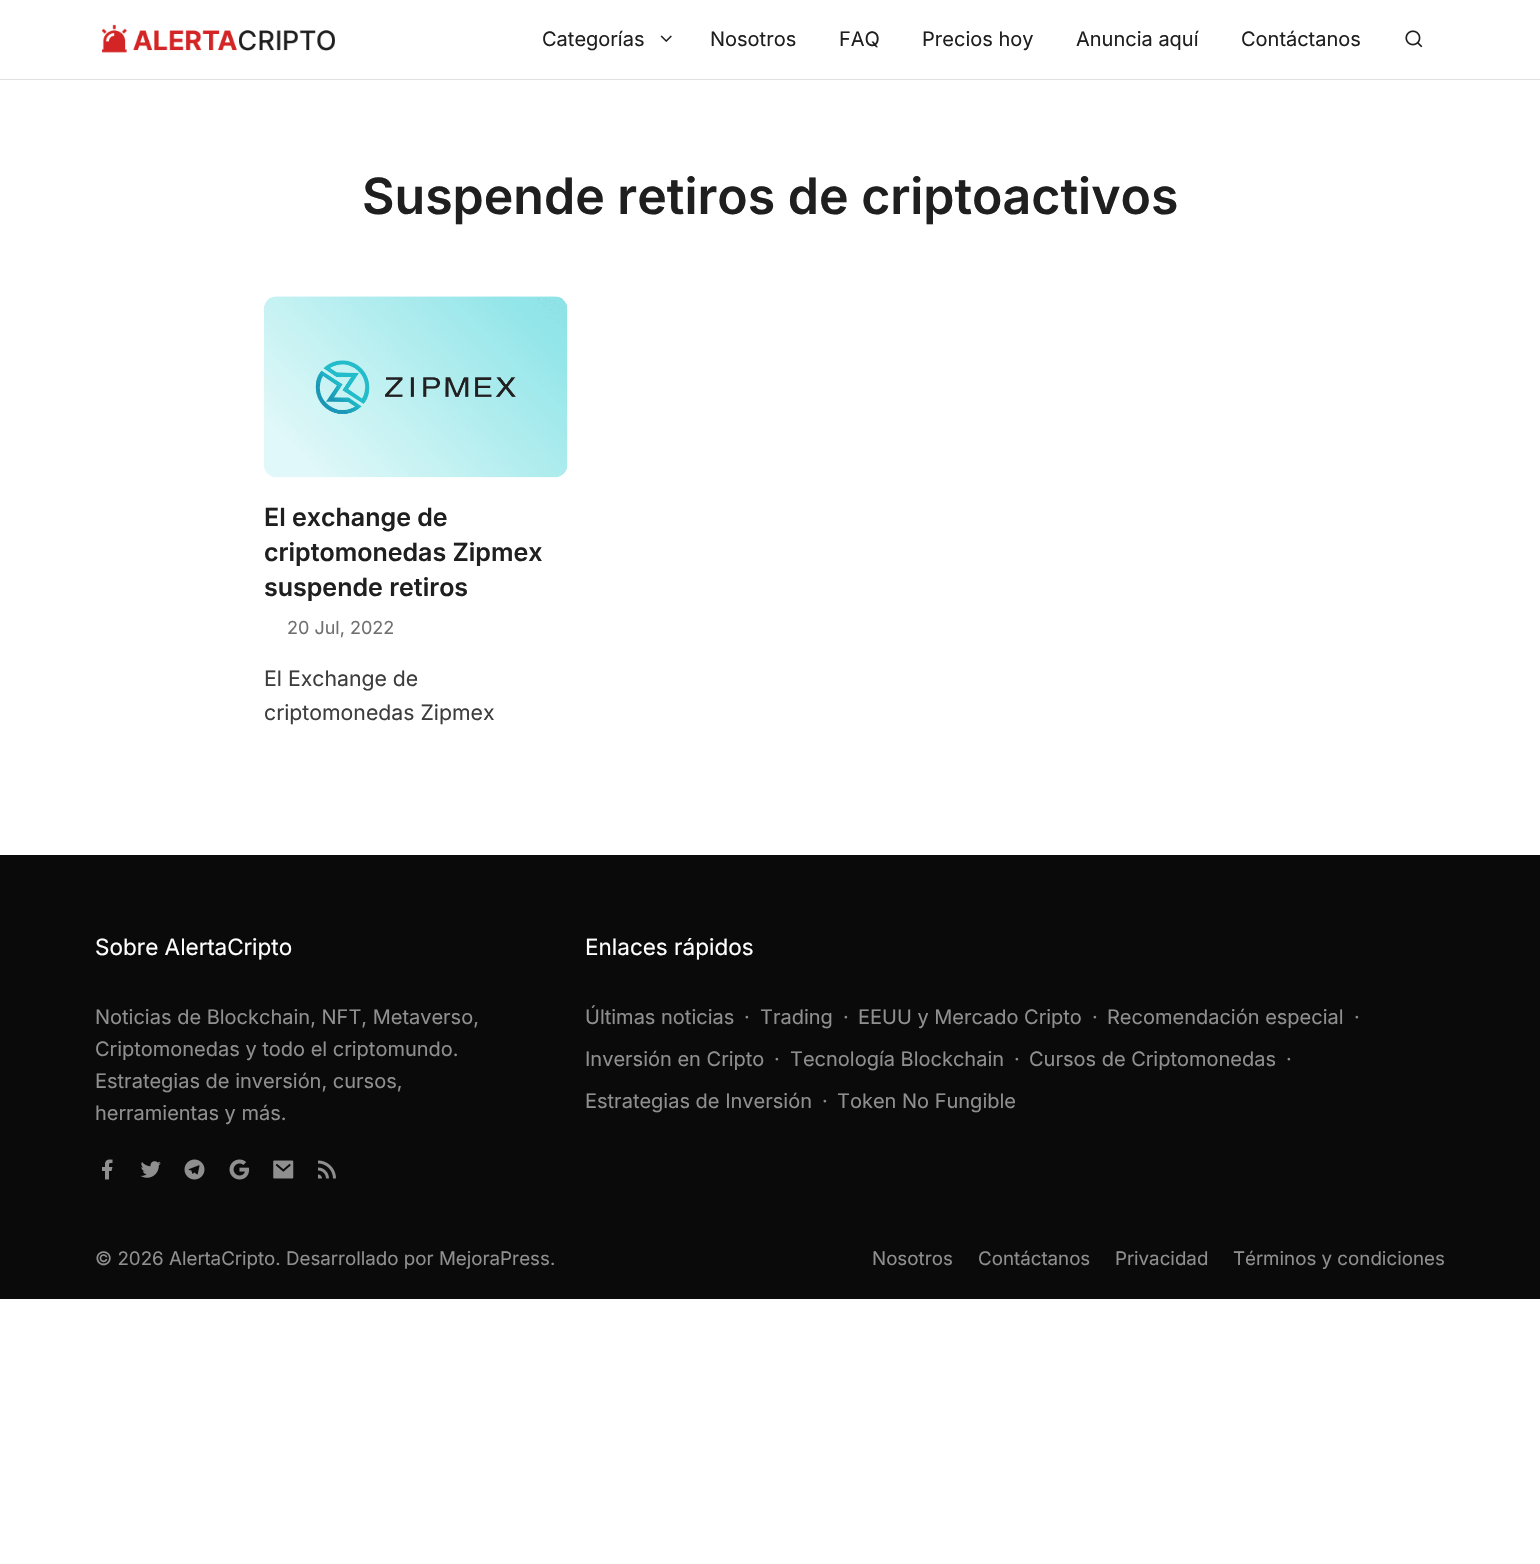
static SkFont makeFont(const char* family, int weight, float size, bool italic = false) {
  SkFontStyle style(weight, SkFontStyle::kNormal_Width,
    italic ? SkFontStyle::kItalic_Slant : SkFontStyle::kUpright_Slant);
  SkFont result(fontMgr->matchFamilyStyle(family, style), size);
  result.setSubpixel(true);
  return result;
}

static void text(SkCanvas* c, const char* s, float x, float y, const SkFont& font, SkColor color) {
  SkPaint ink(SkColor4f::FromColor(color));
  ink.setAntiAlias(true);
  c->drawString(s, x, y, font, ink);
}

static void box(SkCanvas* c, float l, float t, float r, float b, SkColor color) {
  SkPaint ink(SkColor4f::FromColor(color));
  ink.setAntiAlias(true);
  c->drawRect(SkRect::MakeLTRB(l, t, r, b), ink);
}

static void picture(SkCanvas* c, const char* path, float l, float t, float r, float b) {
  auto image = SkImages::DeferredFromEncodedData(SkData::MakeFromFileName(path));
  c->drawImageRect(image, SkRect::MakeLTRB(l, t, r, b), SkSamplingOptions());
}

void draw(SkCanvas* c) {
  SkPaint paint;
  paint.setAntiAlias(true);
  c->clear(0xffffffff);
  box(c, 0, 79, 1540, 80, 0xffe0e0e0);
  picture(c, "img_01.png", 101, 24, 335, 53);
  SkFont face1 = makeFont("Inter", 400, 20);
  text(c, "Categorías", 542, 46, face1, 0xff1f1f1f);
  picture(c, "img_02.png", 660, 35, 672, 42);
  text(c, "Nosotros", 710, 46, face1, 0xff1f1f1f);
  text(c, "FAQ", 839, 46, face1, 0xff1f1f1f);
  text(c, "Precios hoy", 922, 46, face1, 0xff1f1f1f);
  text(c, "Anuncia aquí", 1076, 46, face1, 0xff1f1f1f);
  text(c, "Contáctanos", 1241, 46, face1, 0xff1f1f1f);
  picture(c, "img_03.png", 1405, 30, 1423, 48);
  SkFont face2 = makeFont("Inter", 600, 50);
  text(c, "Suspende retiros de criptoactivos", 362, 214, face2, 0xff1f1f1f);
  picture(c, "img_04.png", 264, 296, 568, 478);
  SkFont face3 = makeFont("Inter", 600, 25);
  text(c, "El exchange de", 264, 526, face3, 0xff1f1f1f);
  text(c, "criptomonedas Zipmex", 264, 561, face3, 0xff1f1f1f);
  text(c, "suspende retiros", 264, 596, face3, 0xff1f1f1f);
  SkFont face4 = makeFont("Inter", 400, 18);
  text(c, "20 Jul, 2022", 287, 634, face4, 0xff707070);
  SkFont face5 = makeFont("Inter", 400, 21.25f);
  text(c, "El Exchange de", 264, 686, face5, 0xff3d3d3d);
  text(c, "criptomonedas Zipmex", 264, 720, face5, 0xff3d3d3d);
  box(c, 0, 855, 1540, 1299, 0xff0a0a0a);
  SkFont face6 = makeFont("Inter", 400, 22.5f);
  text(c, "Sobre AlertaCripto", 95, 955, face6, 0xffffffff);
  text(c, "Noticias de Blockchain, NFT, Metaverso,", 95, 1024, face1, 0xff8f8f8f);
  text(c, "Criptomonedas y todo el criptomundo.", 95, 1056, face1, 0xff8f8f8f);
  text(c, "Estrategias de inversión, cursos,", 95, 1088, face1, 0xff8f8f8f);
  text(c, "herramientas y más.", 95, 1120, face1, 0xff8f8f8f);
  picture(c, "img_05.png", 102, 1159, 113, 1180);
  picture(c, "img_06.png", 140, 1161, 161, 1178);
  picture(c, "img_07.png", 184, 1159, 205, 1180);
  picture(c, "img_08.png", 229, 1159, 250, 1180);
  picture(c, "img_09.png", 273, 1160, 294, 1179);
  picture(c, "img_10.png", 318, 1160, 336, 1179);
  text(c, "Enlaces rápidos", 585, 955, face6, 0xffffffff);
  text(c, "Últimas noticias", 585, 1024, face1, 0xff8f8f8f);
  text(c, "·", 744, 1024, face1, 0xff8f8f8f);
  text(c, "Trading", 760, 1024, face1, 0xff8f8f8f);
  text(c, "·", 843, 1024, face1, 0xff8f8f8f);
  text(c, "EEUU y Mercado Cripto", 858, 1024, face1, 0xff8f8f8f);
  text(c, "·", 1092, 1024, face1, 0xff8f8f8f);
  text(c, "Recomendación especial", 1107, 1024, face1, 0xff8f8f8f);
  text(c, "·", 1354, 1024, face1, 0xff8f8f8f);
  text(c, "Inversión en Cripto", 585, 1066, face1, 0xff8f8f8f);
  text(c, "·", 774, 1066, face1, 0xff8f8f8f);
  text(c, "Tecnología Blockchain", 790, 1066, face1, 0xff8f8f8f);
  text(c, "·", 1014, 1066, face1, 0xff8f8f8f);
  text(c, "Cursos de Criptomonedas", 1029, 1066, face1, 0xff8f8f8f);
  text(c, "·", 1286, 1066, face1, 0xff8f8f8f);
  text(c, "Estrategias de Inversión", 585, 1108, face1, 0xff8f8f8f);
  text(c, "·", 822, 1108, face1, 0xff8f8f8f);
  text(c, "Token No Fungible", 837, 1108, face1, 0xff8f8f8f);
  SkFont face7 = makeFont("Inter", 400, 18.75f);
  text(c, "© 2026 AlertaCripto. Desarrollado por MejoraPress.", 95, 1265, face7, 0xff8f8f8f);
  text(c, "Nosotros", 872, 1265, face7, 0xff8f8f8f);
  text(c, "Contáctanos", 978, 1265, face7, 0xff8f8f8f);
  text(c, "Privacidad", 1115, 1265, face7, 0xff8f8f8f);
  text(c, "Términos y condiciones", 1233, 1265, face7, 0xff8f8f8f);
}
